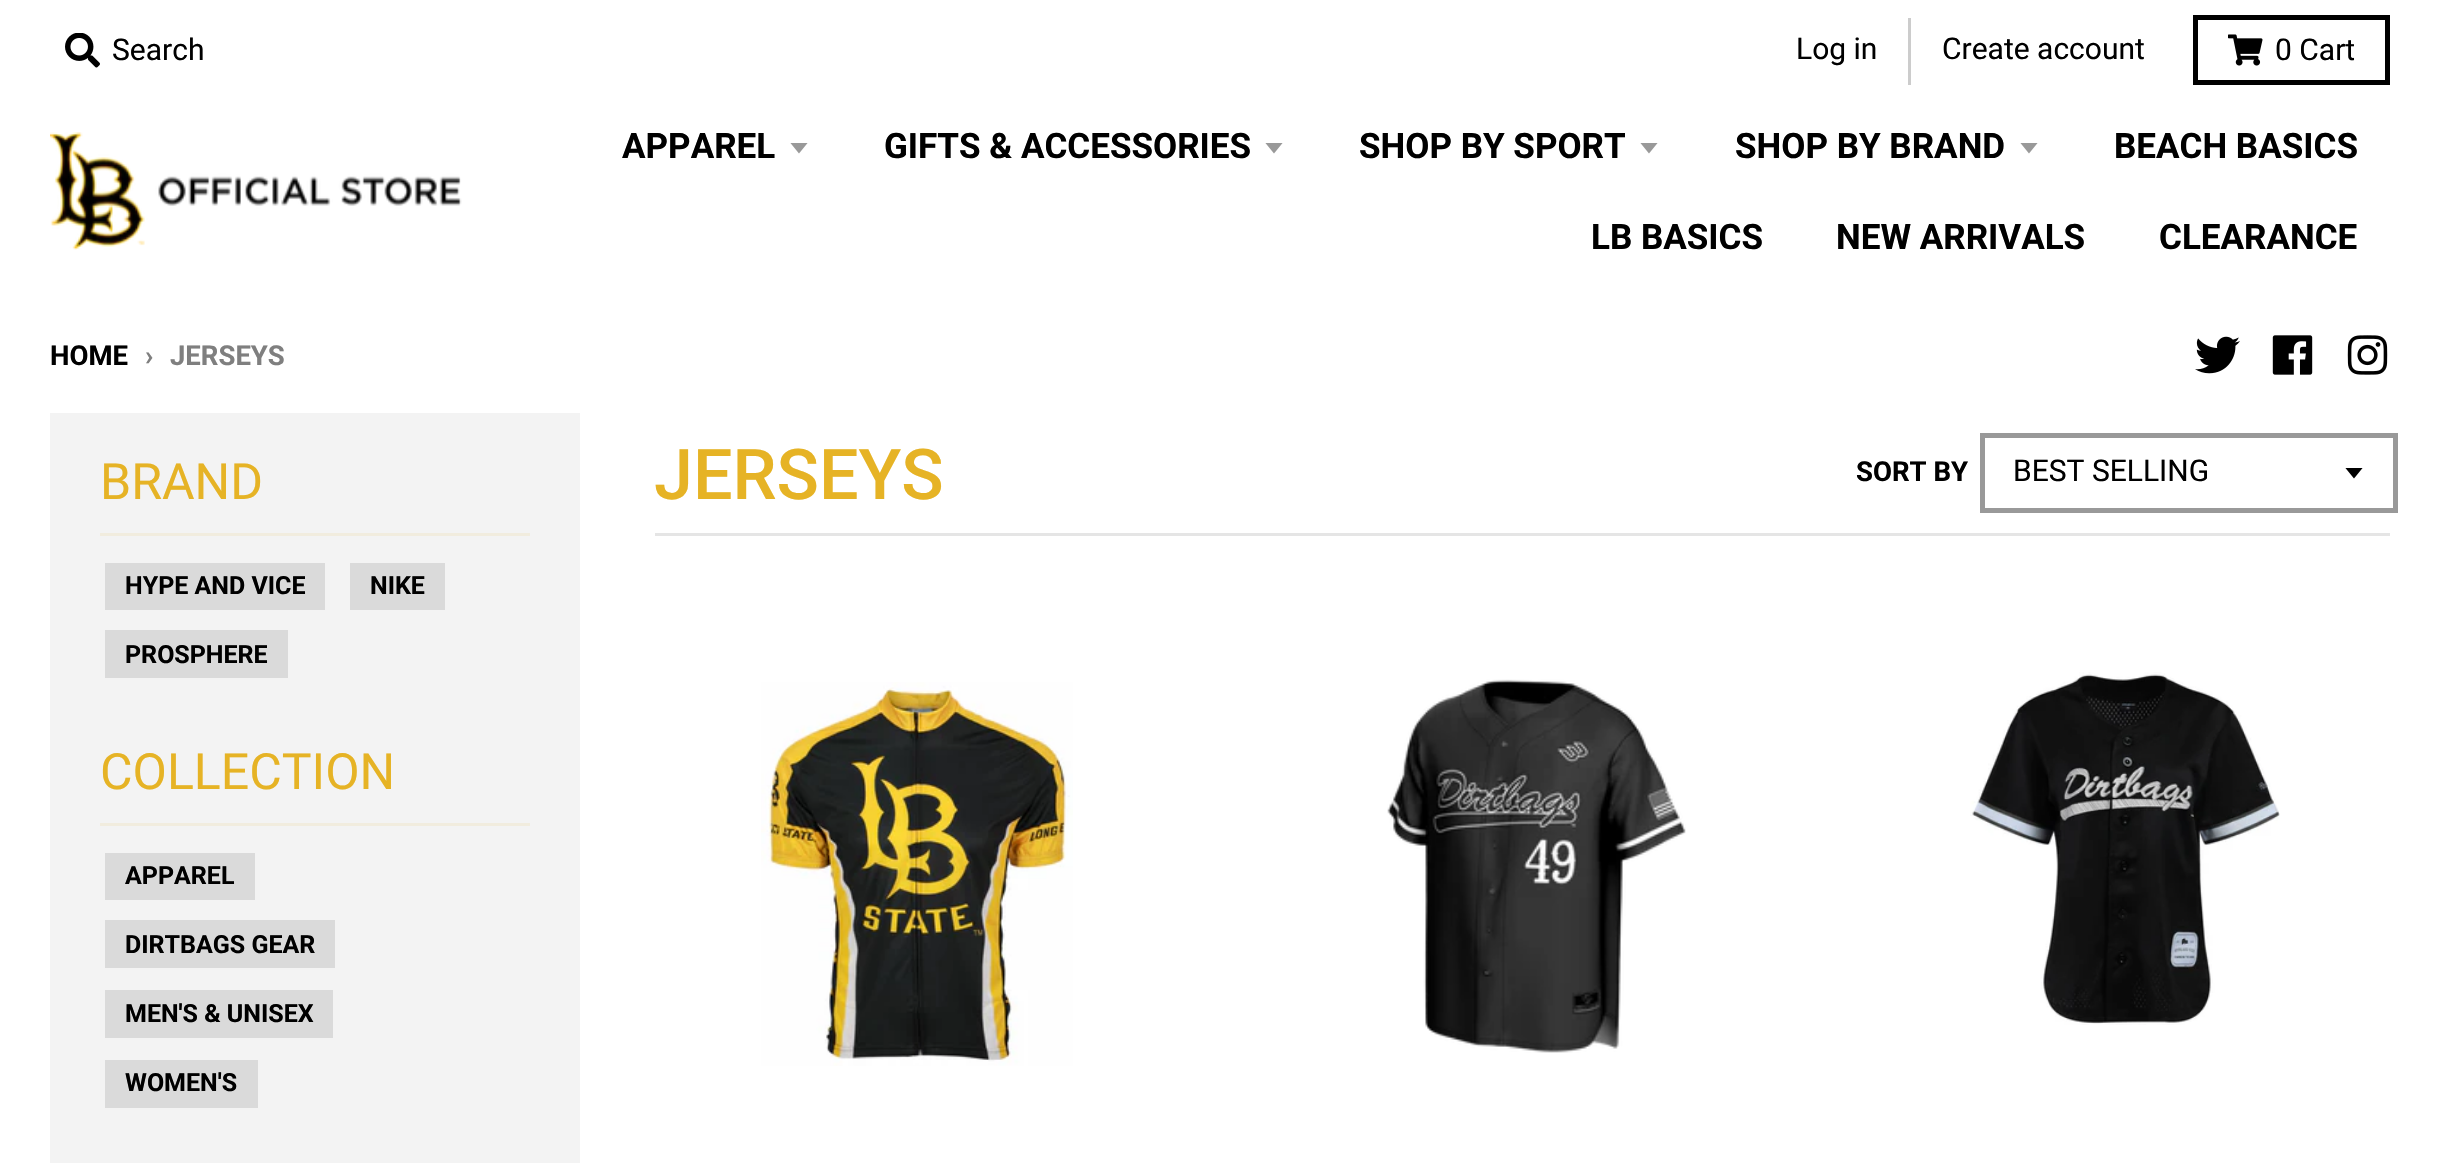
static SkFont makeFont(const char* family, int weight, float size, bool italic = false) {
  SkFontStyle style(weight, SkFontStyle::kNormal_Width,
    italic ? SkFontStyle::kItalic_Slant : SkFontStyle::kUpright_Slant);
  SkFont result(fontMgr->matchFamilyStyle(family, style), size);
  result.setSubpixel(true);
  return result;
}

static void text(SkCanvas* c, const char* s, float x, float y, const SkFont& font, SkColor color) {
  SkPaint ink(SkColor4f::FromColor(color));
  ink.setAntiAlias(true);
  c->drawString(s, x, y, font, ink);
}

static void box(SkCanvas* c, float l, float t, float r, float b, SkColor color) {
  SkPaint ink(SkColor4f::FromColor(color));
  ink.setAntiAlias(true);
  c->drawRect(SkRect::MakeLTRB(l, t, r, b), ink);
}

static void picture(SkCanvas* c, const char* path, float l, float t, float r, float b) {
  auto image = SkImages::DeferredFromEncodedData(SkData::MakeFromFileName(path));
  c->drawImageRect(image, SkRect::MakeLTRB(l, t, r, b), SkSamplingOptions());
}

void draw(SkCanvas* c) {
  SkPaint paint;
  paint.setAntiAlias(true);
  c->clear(0xffffffff);
  picture(c, "img_01.png", 65, 33, 100, 68);
  SkFont face1 = makeFont("Roboto", 400, 30);
  text(c, "Search", 112, 60, face1, 0xff000000);
  box(c, 1908, 18, 1911, 85, 0xffcccccc);
  text(c, "Log in", 1796, 59, face1, 0xff000000);
  text(c, "Create account", 1942, 59, face1, 0xff000000);
  paint.setStyle(SkPaint::kStroke_Style);
  paint.setStrokeWidth(5);
  paint.setColor(0xff000000);
  c->drawRect(SkRect::MakeLTRB(2195.5f, 17.5f, 2387.5f, 82.5f), paint);
  picture(c, "img_02.png", 2228, 34, 2263, 66);
  text(c, "0 Cart", 2275, 60, face1, 0xff000000);
  picture(c, "img_03.png", 50, 132, 462, 250);
  SkFont face2 = makeFont("Roboto", 700, 35);
  text(c, "APPAREL", 622, 158, face2, 0xff000000);
  c->save();
  c->clipRect(SkRect::MakeLTRB(790, 143, 810, 155));
  paint.setStyle(SkPaint::kFill_Style);
  paint.setColor(0xff999999);
  c->drawPath(SkPathBuilder().moveTo(790, 142.5f).lineTo(799, 153.5f).lineTo(808, 142.5f).close().detach(), paint);
  c->restore();
  text(c, "GIFTS & ACCESSORIES", 884, 158, face2, 0xff000000);
  c->save();
  c->clipRect(SkRect::MakeLTRB(1265, 143, 1285, 155));
  c->drawPath(SkPathBuilder().moveTo(1265, 142.5f).lineTo(1274, 153.5f).lineTo(1283, 142.5f).close().detach(), paint);
  c->restore();
  text(c, "SHOP BY SPORT", 1359, 158, face2, 0xff000000);
  c->save();
  c->clipRect(SkRect::MakeLTRB(1640, 143, 1660, 155));
  c->drawPath(SkPathBuilder().moveTo(1640, 142.5f).lineTo(1649, 153.5f).lineTo(1658, 142.5f).close().detach(), paint);
  c->restore();
  text(c, "SHOP BY BRAND", 1735, 158, face2, 0xff000000);
  c->save();
  c->clipRect(SkRect::MakeLTRB(2020, 143, 2040, 155));
  c->drawPath(SkPathBuilder().moveTo(2020, 142.5f).lineTo(2029, 153.5f).lineTo(2038, 142.5f).close().detach(), paint);
  c->restore();
  text(c, "BEACH BASICS", 2114, 158, face2, 0xff000000);
  text(c, "LB BASICS", 1591, 249, face2, 0xff000000);
  text(c, "NEW ARRIVALS", 1836, 249, face2, 0xff000000);
  text(c, "CLEARANCE", 2159, 249, face2, 0xff000000);
  SkFont face3 = makeFont("Roboto", 700, 27.5f);
  text(c, "HOME", 50, 365, face3, 0xff000000);
  text(c, "›", 145, 365, face3, 0xff7f7f7f);
  text(c, "JERSEYS", 170, 365, face3, 0xff7f7f7f);
  picture(c, "img_04.png", 2195, 336, 2240, 374);
  picture(c, "img_05.png", 2272, 335, 2313, 375);
  picture(c, "img_06.png", 2347, 335, 2388, 375);
  box(c, 50, 413, 580, 1163, 0xfff3f3f3);
  box(c, 100, 533, 530, 536, 0xfff1ecde);
  SkFont face4 = makeFont("Roboto", 400, 50);
  text(c, "BRAND", 100, 499, face4, 0xffe6b325);
  box(c, 120, 563, 325, 610, 0xffdadada);
  SkFont face5 = makeFont("Roboto", 700, 25);
  text(c, "HYPE AND VICE", 125, 594, face5, 0xff000000);
  box(c, 105, 563, 120, 610, 0xffdadada);
  box(c, 365, 563, 445, 610, 0xffdadada);
  text(c, "NIKE", 370, 594, face5, 0xff000000);
  box(c, 350, 563, 365, 610, 0xffdadada);
  box(c, 120, 630, 272, 678, 0xffdadada);
  text(c, "PROSPHERE", 125, 663, face5, 0xff000000);
  paint.setColor(0xffdadada);
  c->drawPath(SkPathBuilder().moveTo(105, 630).lineTo(105, 678).lineTo(258, 678).lineTo(120, 678).lineTo(120, 630).close().detach(), paint);
  c->drawPath(SkPathBuilder().moveTo(135, 678).lineTo(288, 678).lineTo(288, 630).lineTo(272, 630).lineTo(272, 678).close().detach(), paint);
  box(c, 100, 823, 530, 826, 0xfff1ecde);
  text(c, "COLLECTION", 100, 789, face4, 0xffe6b325);
  box(c, 120, 853, 255, 900, 0xffdadada);
  text(c, "APPAREL", 125, 884, face5, 0xff000000);
  box(c, 105, 853, 120, 900, 0xffdadada);
  box(c, 120, 920, 320, 968, 0xffdadada);
  text(c, "DIRTBAGS GEAR", 125, 953, face5, 0xff000000);
  c->drawPath(SkPathBuilder().moveTo(105, 920).lineTo(105, 968).lineTo(305, 968).lineTo(120, 968).lineTo(120, 920).close().detach(), paint);
  c->drawPath(SkPathBuilder().moveTo(135, 968).lineTo(335, 968).lineTo(335, 920).lineTo(320, 920).lineTo(320, 968).close().detach(), paint);
  box(c, 120, 990, 318, 1038, 0xffdadada);
  text(c, "MEN'S & UNISEX", 125, 1022, face5, 0xff000000);
  c->drawPath(SkPathBuilder().moveTo(105, 990).lineTo(105, 1038).lineTo(303, 1038).lineTo(120, 1038).lineTo(120, 990).close().detach(), paint);
  c->drawPath(SkPathBuilder().moveTo(135, 1038).lineTo(333, 1038).lineTo(333, 990).lineTo(318, 990).lineTo(318, 1038).close().detach(), paint);
  box(c, 120, 1060, 242, 1108, 0xffdadada);
  text(c, "WOMEN'S", 125, 1091, face5, 0xff000000);
  c->drawPath(SkPathBuilder().moveTo(105, 1060).lineTo(105, 1108).lineTo(228, 1108).lineTo(120, 1108).lineTo(120, 1060).close().detach(), paint);
  c->drawPath(SkPathBuilder().moveTo(135, 1108).lineTo(258, 1108).lineTo(258, 1060).lineTo(242, 1060).lineTo(242, 1108).close().detach(), paint);
  box(c, 655, 533, 2390, 536, 0xffe5e5e5);
  SkFont face6 = makeFont("Roboto", 500, 70);
  text(c, "JERSEYS", 654, 499, face6, 0xffe6b325);
  text(c, "SORT BY", 1856, 481, face3, 0xff000000);
  c->save();
  c->clipRect(SkRect::MakeLTRB(2345, 468, 2365, 480));
  paint.setColor(0xff000000);
  c->drawPath(SkPathBuilder().moveTo(2345, 467.5f).lineTo(2354, 478.5f).lineTo(2363, 467.5f).close().detach(), paint);
  c->restore();
  paint.setStyle(SkPaint::kStroke_Style);
  paint.setColor(0xff999999);
  c->drawRect(SkRect::MakeLTRB(1982.5f, 435.5f, 2395.5f, 510.5f), paint);
  text(c, "BEST SELLING", 2013, 481, face1, 0xff000000);
  picture(c, "img_07.png", 761, 682, 1073, 1066);
  picture(c, "img_08.png", 1387, 679, 1686, 1053);
  picture(c, "img_09.png", 1970, 672, 2280, 1025);
}
